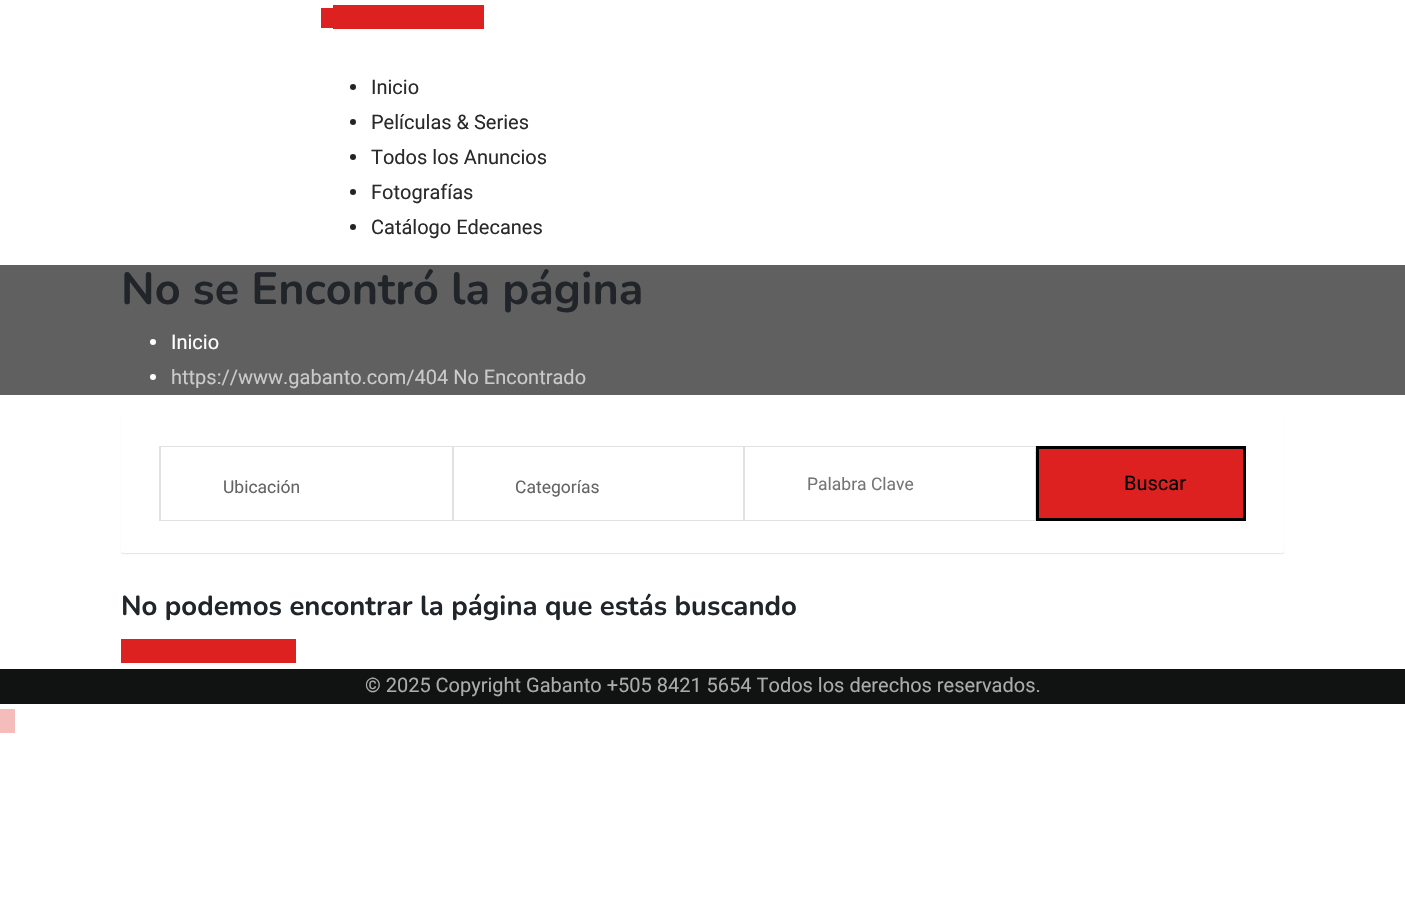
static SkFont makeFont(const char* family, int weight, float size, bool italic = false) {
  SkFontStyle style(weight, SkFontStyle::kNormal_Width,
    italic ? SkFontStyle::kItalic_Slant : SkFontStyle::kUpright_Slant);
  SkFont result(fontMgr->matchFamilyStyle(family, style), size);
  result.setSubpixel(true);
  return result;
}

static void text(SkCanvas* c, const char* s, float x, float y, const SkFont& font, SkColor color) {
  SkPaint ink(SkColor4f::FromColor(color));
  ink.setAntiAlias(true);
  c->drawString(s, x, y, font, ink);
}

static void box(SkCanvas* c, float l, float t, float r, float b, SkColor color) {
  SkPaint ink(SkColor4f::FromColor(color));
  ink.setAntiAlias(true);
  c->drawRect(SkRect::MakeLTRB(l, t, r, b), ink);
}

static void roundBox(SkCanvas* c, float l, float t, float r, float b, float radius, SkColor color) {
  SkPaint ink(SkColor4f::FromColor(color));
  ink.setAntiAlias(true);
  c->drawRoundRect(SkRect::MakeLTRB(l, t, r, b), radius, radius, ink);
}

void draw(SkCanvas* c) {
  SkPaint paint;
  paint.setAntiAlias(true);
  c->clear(0xffffffff);
  box(c, 321, 8, 333, 28, 0xffdd2121);
  box(c, 333, 5, 484, 29, 0xffdd2121);
  paint.setColor(0xff212529);
  c->drawCircle(353, 87, 3, paint);
  SkFont face1 = makeFont("Roboto", 400, 20);
  text(c, "Inicio", 371, 94, face1, 0xff2a2a2a);
  c->drawCircle(353, 122, 3, paint);
  text(c, "Películas & Series", 371, 129, face1, 0xff2a2a2a);
  c->drawCircle(353, 157, 3, paint);
  text(c, "Todos los Anuncios", 371, 164, face1, 0xff2a2a2a);
  c->drawCircle(353, 192, 3, paint);
  text(c, "Fotografías", 371, 199, face1, 0xff2a2a2a);
  c->drawCircle(353, 227, 3, paint);
  text(c, "Catálogo Edecanes", 371, 234, face1, 0xff2a2a2a);
  box(c, 0, 265, 1405, 395, 0xff606060);
  SkFont face2 = makeFont("Nunito", 200, 45);
  text(c, "No se Encontró la página", 121, 304, face2, 0xff212529);
  paint.setColor(0xffffffff);
  c->drawCircle(153, 342, 3, paint);
  text(c, "Inicio", 171, 349, face1, 0xffffffff);
  c->drawCircle(153, 377, 3, paint);
  text(c, "https://www.gabanto.com/404 No Encontrado", 171, 384, face1, 0xffcacaca);
  paint.setColor(0x1a000000);
  paint.setMaskFilter(SkMaskFilter::MakeBlur(kNormal_SkBlurStyle, 0.5f));
  c->drawRoundRect(SkRect::MakeLTRB(121, 416, 1284, 554), 2.5f, 2.5f, paint);
  paint.setMaskFilter(nullptr);
  roundBox(c, 121, 415, 1284, 553, 2.5f, 0xffffffff);
  box(c, 159, 446, 160, 521, 0xffe1e1e1);
  paint.setStyle(SkPaint::kStroke_Style);
  paint.setStrokeWidth(1);
  paint.setColor(0xffe1e1e1);
  c->drawRect(SkRect::MakeLTRB(160.5f, 446.5f, 452.5f, 520.5f), paint);
  SkFont face3 = makeFont("Roboto", 400, 17.5f);
  text(c, "Ubicación", 223, 493, face3, 0xff646464);
  c->drawRect(SkRect::MakeLTRB(453.5f, 446.5f, 743.5f, 520.5f), paint);
  text(c, "Categorías", 515, 493, face3, 0xff646464);
  c->drawRect(SkRect::MakeLTRB(744.5f, 446.5f, 1035.5f, 520.5f), paint);
  text(c, "Palabra Clave", 807, 490, face3, 0xff757575);
  paint.setStyle(SkPaint::kFill_Style);
  paint.setColor(0xffdd2121);
  c->drawRect(SkRect::MakeLTRB(1037.5f, 447.5f, 1244.5f, 519.5f), paint);
  paint.setStyle(SkPaint::kStroke_Style);
  paint.setStrokeWidth(3);
  paint.setColor(0xff000000);
  c->drawRect(SkRect::MakeLTRB(1037.5f, 447.5f, 1244.5f, 519.5f), paint);
  text(c, "Buscar", 1124, 490, face1, 0xff000000);
  SkFont face4 = makeFont("Nunito", 200, 27.5f);
  text(c, "No podemos encontrar la página que estás buscando", 121, 615, face4, 0xff212529);
  box(c, 121, 639, 296, 663, 0xffdd2121);
  box(c, 0, 669, 1405, 704, 0xff111212);
  text(c, "© 2025 Copyright Gabanto +505 8421 5654 Todos los derechos reservados.", 365, 692, face1, 0xffababab);
  box(c, 0, 709, 15, 733, 0xfff5bcbc);
}
